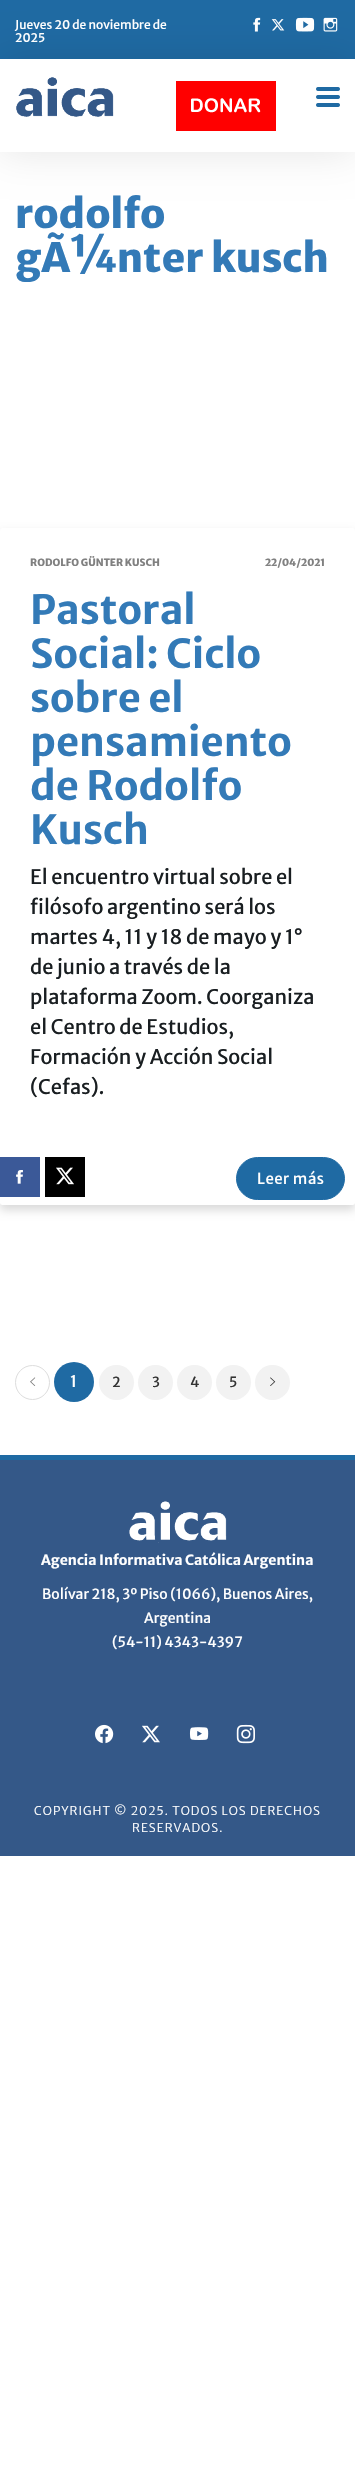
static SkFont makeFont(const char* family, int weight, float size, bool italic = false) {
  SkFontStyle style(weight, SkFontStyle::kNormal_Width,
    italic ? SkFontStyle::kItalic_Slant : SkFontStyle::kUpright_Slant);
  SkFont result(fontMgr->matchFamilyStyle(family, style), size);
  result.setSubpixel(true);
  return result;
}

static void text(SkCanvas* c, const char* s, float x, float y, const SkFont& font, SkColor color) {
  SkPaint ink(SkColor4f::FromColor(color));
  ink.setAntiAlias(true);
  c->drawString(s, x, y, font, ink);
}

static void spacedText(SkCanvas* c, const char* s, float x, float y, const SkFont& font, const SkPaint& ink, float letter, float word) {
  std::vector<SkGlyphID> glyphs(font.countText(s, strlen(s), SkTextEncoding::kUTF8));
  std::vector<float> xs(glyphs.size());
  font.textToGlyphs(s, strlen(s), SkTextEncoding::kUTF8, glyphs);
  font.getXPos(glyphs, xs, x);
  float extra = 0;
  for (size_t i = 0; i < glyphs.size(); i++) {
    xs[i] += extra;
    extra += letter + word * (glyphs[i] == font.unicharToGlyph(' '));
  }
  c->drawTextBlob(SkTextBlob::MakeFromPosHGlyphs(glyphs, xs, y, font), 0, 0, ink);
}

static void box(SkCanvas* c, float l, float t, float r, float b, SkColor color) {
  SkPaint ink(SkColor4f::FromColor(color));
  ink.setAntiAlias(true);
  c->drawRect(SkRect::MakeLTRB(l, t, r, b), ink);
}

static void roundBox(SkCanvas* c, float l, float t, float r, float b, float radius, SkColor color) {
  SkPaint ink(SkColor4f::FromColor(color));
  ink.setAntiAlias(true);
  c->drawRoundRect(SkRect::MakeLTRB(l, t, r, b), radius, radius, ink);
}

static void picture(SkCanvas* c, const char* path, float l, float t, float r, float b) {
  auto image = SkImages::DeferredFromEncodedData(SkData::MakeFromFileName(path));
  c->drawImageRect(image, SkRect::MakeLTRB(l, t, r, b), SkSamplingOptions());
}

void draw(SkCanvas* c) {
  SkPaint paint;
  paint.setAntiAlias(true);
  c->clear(0xffffffff);
  box(c, 0, 0, 355, 59, 0xff1f6aa3);
  picture(c, "img_04.png", 253, 17, 261, 32);
  picture(c, "img_05.png", 271, 19, 285, 31);
  picture(c, "img_06.png", 295, 17, 315, 32);
  picture(c, "img_07.png", 323, 17, 338, 32);
  c->save();
  c->clipPath(SkPathBuilder(SkPathFillType::kEvenOdd).moveTo(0, 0).lineTo(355, 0).lineTo(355, 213).lineTo(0, 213).close().moveTo(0, 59).lineTo(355, 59).lineTo(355, 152).lineTo(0, 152).close().detach(), true);
  paint.setColor(0x1a000000);
  paint.setMaskFilter(SkMaskFilter::MakeBlur(kNormal_SkBlurStyle, 20));
  c->drawRect(SkRect::MakeLTRB(0, 59, 355, 152), paint);
  paint.setMaskFilter(nullptr);
  c->restore();
  picture(c, "img_01.png", 16, 77, 114, 117);
  picture(c, "img_02.png", 176, 81, 276, 131);
  picture(c, "img_03.png", 316, 87, 340, 107);
  SkFont face1 = makeFont("Merriweather Sans", 400, 12);
  text(c, "Jueves 20 de noviembre de", 15, 29, face1, 0xffffffff);
  text(c, "2025", 15, 42, face1, 0xffffffff);
  SkFont face2 = makeFont("Merriweather Sans", 800, 40);
  text(c, "rodolfo", 15, 228, face2, 0xff337ab7);
  text(c, "gÃ¼nter kusch", 15, 272, face2, 0xff337ab7);
  paint.setColor(0x26000000);
  paint.setMaskFilter(SkMaskFilter::MakeBlur(kNormal_SkBlurStyle, 5));
  c->drawRoundRect(SkRect::MakeLTRB(0, 533, 355, 1210), 2.5f, 2.5f, paint);
  paint.setMaskFilter(nullptr);
  roundBox(c, 0, 528, 355, 1205, 2.5f, 0xffffffff);
  SkFont face3 = makeFont("Merriweather Sans", 800, 10);
  text(c, "RODOLFO GÜNTER KUSCH", 30, 566, face3, 0xff808080);
  text(c, "22/04/2021", 265, 566, face3, 0xff808080);
  SkFont face4 = makeFont("Merriweather Sans", 700, 40);
  text(c, "Pastoral", 30, 624, face4, 0xff337ab7);
  text(c, "Social: Ciclo", 30, 668, face4, 0xff337ab7);
  text(c, "sobre el", 30, 712, face4, 0xff337ab7);
  text(c, "pensamiento", 30, 756, face4, 0xff337ab7);
  text(c, "de Rodolfo", 30, 800, face4, 0xff337ab7);
  text(c, "Kusch", 30, 844, face4, 0xff337ab7);
  SkFont face5 = makeFont("Merriweather Sans", 400, 20);
  text(c, "El encuentro virtual sobre el", 30, 884, face5, 0xff191e21);
  text(c, "filósofo argentino será los", 30, 914, face5, 0xff191e21);
  text(c, "martes 4, 11 y 18 de mayo y 1°", 30, 944, face5, 0xff191e21);
  text(c, "de junio a través de la", 30, 974, face5, 0xff191e21);
  text(c, "plataforma Zoom. Coorganiza", 30, 1004, face5, 0xff191e21);
  text(c, "el Centro de Estudios,", 30, 1034, face5, 0xff191e21);
  text(c, "Formación y Acción Social", 30, 1064, face5, 0xff191e21);
  text(c, "(Cefas).", 30, 1094, face5, 0xff191e21);
  box(c, 0, 1157, 40, 1197, 0xff3b5998);
  picture(c, "img_08.png", 16, 1170, 23, 1184);
  box(c, 45, 1157, 85, 1197, 0xff000000);
  picture(c, "img_09.png", 56, 1167, 74, 1185);
  paint.setColor(0xff1f6aa3);
  c->drawRoundRect(SkRect::MakeLTRB(236.5f, 1157.5f, 344.5f, 1199.5f), 21, 21, paint);
  paint.setStyle(SkPaint::kStroke_Style);
  paint.setStrokeWidth(1);
  c->drawRoundRect(SkRect::MakeLTRB(236.5f, 1157.5f, 344.5f, 1199.5f), 21, 21, paint);
  SkFont face6 = makeFont("Merriweather Sans", 400, 15);
  paint.setStyle(SkPaint::kFill_Style);
  paint.setColor(0xffffffff);
  spacedText(c, "Leer más", 257, 1184, face6, paint, 0.5f, 0);
  paint.setStyle(SkPaint::kStroke_Style);
  paint.setColor(0xffdddddd);
  c->drawCircle(32.5f, 1382.5f, 17, paint);
  picture(c, "img_10.png", 30, 1377, 36, 1386);
  paint.setStyle(SkPaint::kFill_Style);
  paint.setColor(0xff1f6aa3);
  c->drawCircle(74, 1382, 20, paint);
  SkFont face7 = makeFont("Merriweather Sans", 400, 16);
  text(c, "1", 70, 1387, face7, 0xffffffff);
  paint.setColor(0xfff2f2f2);
  c->drawCircle(116.5f, 1382.5f, 17.5f, paint);
  SkFont face8 = makeFont("Merriweather Sans", 400, 14);
  text(c, "2", 112, 1387, face8, 0xff333333);
  c->drawCircle(155.5f, 1382.5f, 17.5f, paint);
  text(c, "3", 152, 1387, face8, 0xff333333);
  c->drawCircle(194.5f, 1382.5f, 17.5f, paint);
  text(c, "4", 190, 1387, face8, 0xff333333);
  c->drawCircle(233.5f, 1382.5f, 17.5f, paint);
  text(c, "5", 229, 1387, face8, 0xff333333);
  c->drawCircle(272.5f, 1382.5f, 17.5f, paint);
  picture(c, "img_11.png", 270, 1377, 276, 1386);
  box(c, 0, 1460, 355, 1856, 0xff345888);
  box(c, 0, 1455, 355, 1460, 0xff1f6aa3);
  picture(c, "img_12.png", 129, 1501, 227, 1543);
  SkFont face9 = makeFont("Merriweather Sans", 700, 14);
  text(c, "Agencia Informativa Católica Argentina", 41, 1565, face9, 0xffffffff);
  text(c, "Bolívar 218, 3º Piso (1066), Buenos Aires,", 42, 1599, face8, 0xffffffff);
  text(c, "Argentina", 144, 1623, face8, 0xffffffff);
  text(c, "(54-11) 4343-4397", 112, 1647, face8, 0xffffffff);
  picture(c, "img_13.png", 95, 1724, 114, 1744);
  picture(c, "img_14.png", 142, 1725, 160, 1743);
  picture(c, "img_15.png", 189, 1727, 209, 1740);
  picture(c, "img_16.png", 236, 1724, 255, 1744);
  SkFont face10 = makeFont("Merriweather Sans", 300, 12);
  paint.setColor(0xffffffff);
  spacedText(c, "COPYRIGHT © 2025. TODOS LOS DERECHOS", 34, 1815, face10, paint, 1, 0);
  spacedText(c, "RESERVADOS.", 132, 1832, face10, paint, 1, 0);
}
